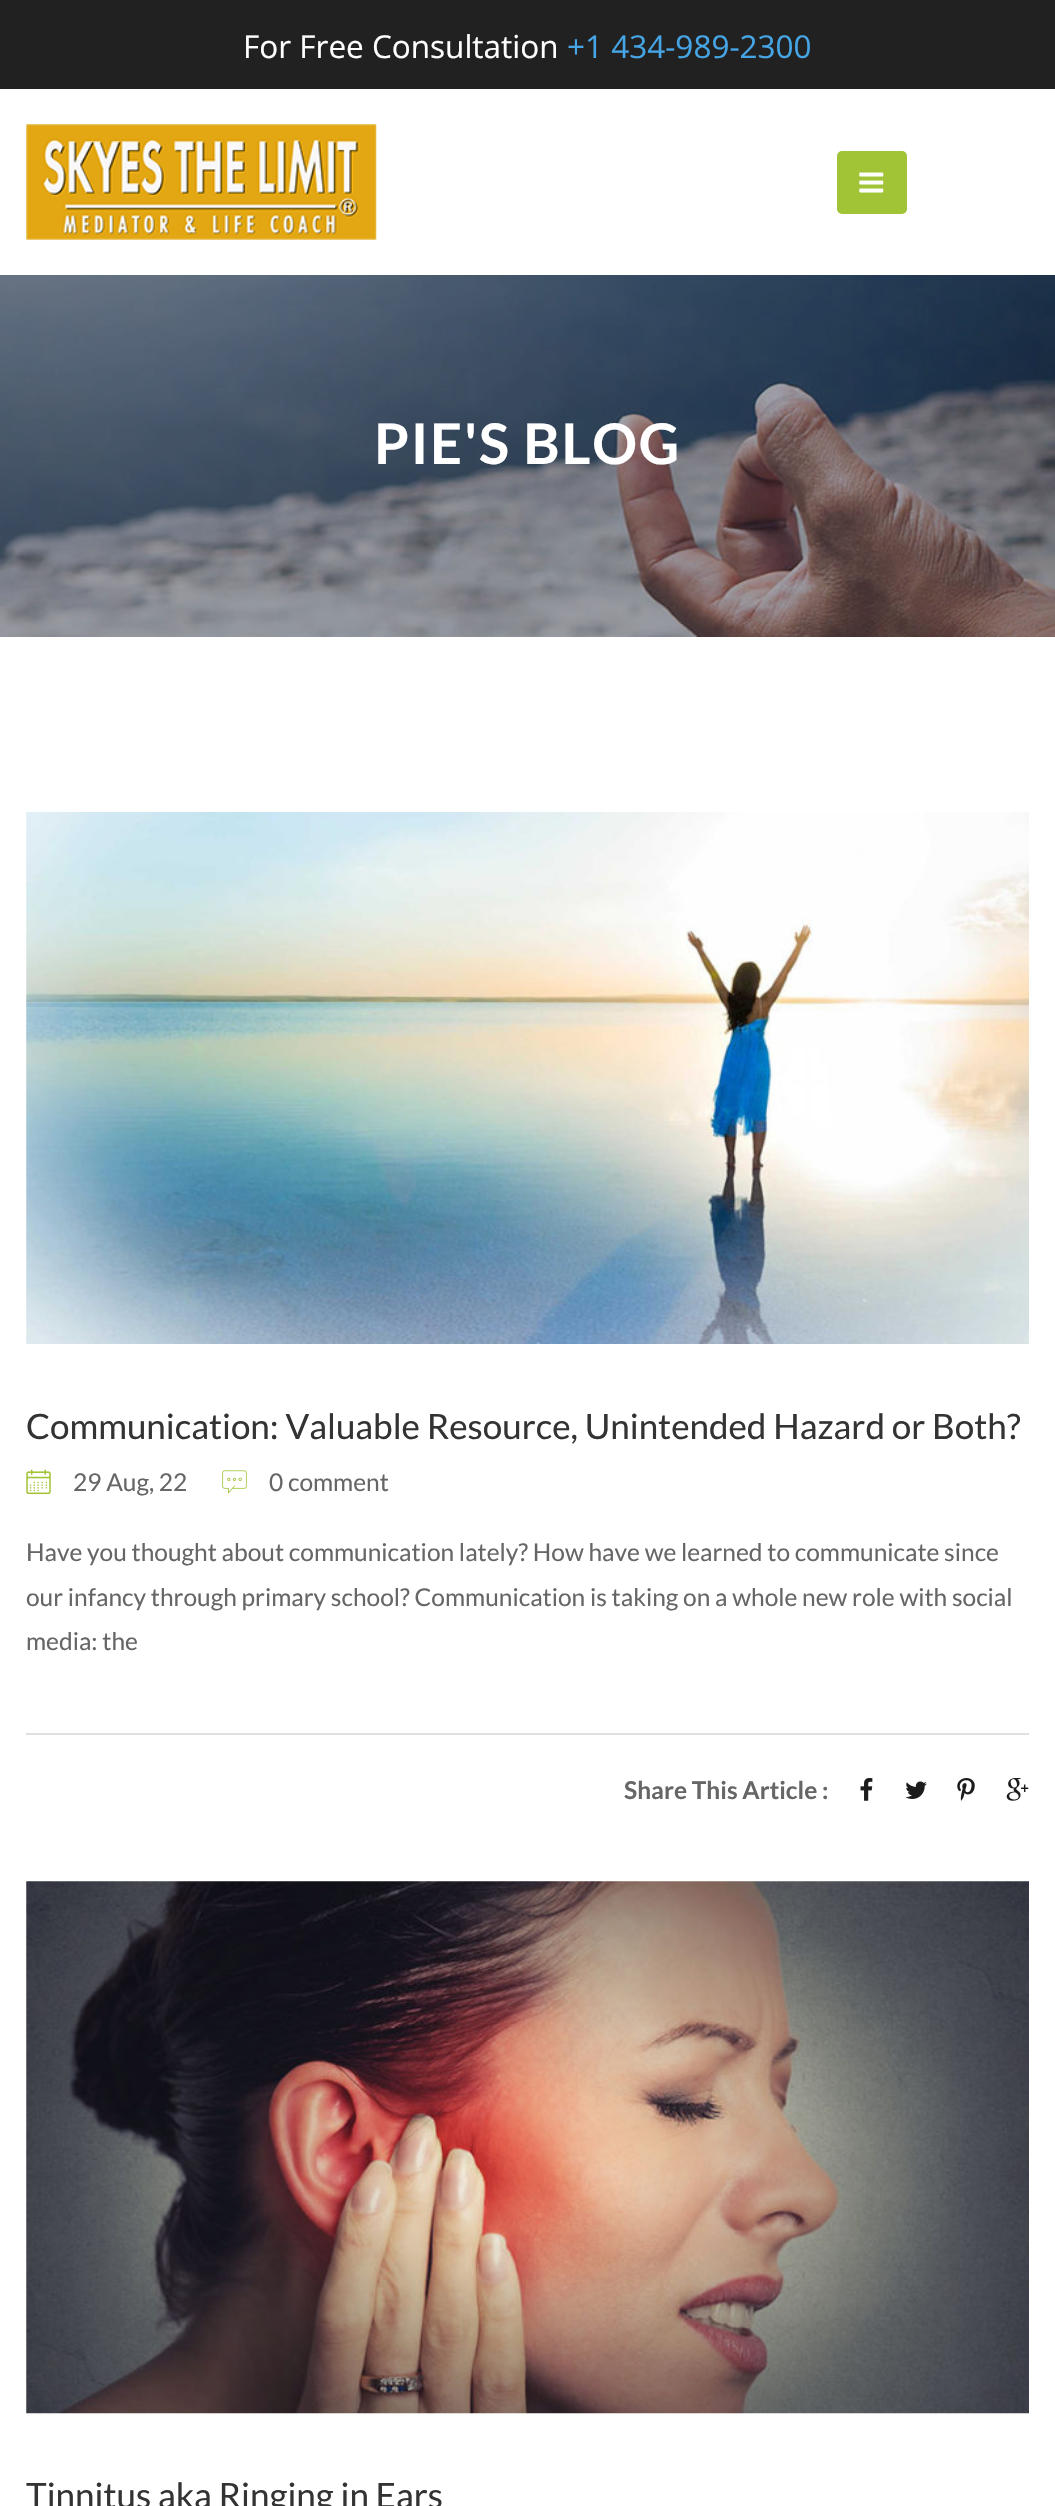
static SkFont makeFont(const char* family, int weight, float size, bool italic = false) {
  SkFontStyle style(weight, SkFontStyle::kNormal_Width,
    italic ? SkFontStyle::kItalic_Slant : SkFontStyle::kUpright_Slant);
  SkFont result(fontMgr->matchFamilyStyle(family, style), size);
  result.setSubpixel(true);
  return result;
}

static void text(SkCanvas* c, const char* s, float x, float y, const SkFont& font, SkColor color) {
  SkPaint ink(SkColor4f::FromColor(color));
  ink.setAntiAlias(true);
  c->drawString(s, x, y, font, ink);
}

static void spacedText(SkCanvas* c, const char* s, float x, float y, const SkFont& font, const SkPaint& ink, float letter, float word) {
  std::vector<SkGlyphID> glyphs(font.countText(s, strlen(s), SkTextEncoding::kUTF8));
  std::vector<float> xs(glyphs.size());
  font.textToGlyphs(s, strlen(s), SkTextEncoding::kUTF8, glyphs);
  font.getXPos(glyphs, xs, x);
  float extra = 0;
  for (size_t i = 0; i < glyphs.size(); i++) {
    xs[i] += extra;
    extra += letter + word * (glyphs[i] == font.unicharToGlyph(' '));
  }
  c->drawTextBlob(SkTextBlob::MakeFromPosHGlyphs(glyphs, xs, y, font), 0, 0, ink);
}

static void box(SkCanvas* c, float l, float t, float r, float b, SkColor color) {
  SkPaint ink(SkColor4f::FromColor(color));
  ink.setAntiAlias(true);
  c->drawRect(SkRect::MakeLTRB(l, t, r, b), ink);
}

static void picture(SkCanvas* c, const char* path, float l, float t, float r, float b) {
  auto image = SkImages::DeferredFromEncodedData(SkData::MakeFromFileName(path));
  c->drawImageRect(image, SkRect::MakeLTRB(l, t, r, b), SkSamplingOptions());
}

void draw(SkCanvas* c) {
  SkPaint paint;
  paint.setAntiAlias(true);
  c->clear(0xffffffff);
  box(c, 0, 0, 1055, 89, 0xff212121);
  SkFont face1 = makeFont("Open Sans", 400, 31.5f);
  text(c, "For Free Consultation", 243, 58, face1, 0xffffffff);
  text(c, "+1 434-989-2300", 567, 58, face1, 0xff46a5e5);
  picture(c, "img_01.png", 26, 124, 377, 240);
  paint.setColor(0xffa1c436);
  c->drawRoundRect(SkRect::MakeLTRB(838, 152, 906, 213), 4, 4, paint);
  paint.setStyle(SkPaint::kStroke_Style);
  paint.setStrokeWidth(2);
  c->drawRoundRect(SkRect::MakeLTRB(838, 152, 906, 213), 4, 4, paint);
  picture(c, "img_02.png", 859, 172, 884, 193);
  picture(c, "img_03.png", 0, 275, 1055, 637);
  SkFont face2 = makeFont("Lato", 700, 56);
  paint.setStyle(SkPaint::kFill_Style);
  paint.setColor(0xffffffff);
  spacedText(c, "PIE'S BLOG", 374, 464, face2, paint, 1.75f, 0);
  picture(c, "img_04.png", 26, 812, 1029, 1344);
  box(c, 26, 1733, 1029, 1735, 0xffe0e0e0);
  SkFont face3 = makeFont("Lato", 400, 35);
  text(c, "Communication: Valuable Resource, Unintended Hazard or Both?", 26, 1439, face3, 0xff333333);
  picture(c, "img_05.png", 26, 1469, 51, 1495);
  SkFont face4 = makeFont("Lato", 400, 24.5f);
  text(c, "29 Aug, 22", 73, 1491, face4, 0xff666666);
  picture(c, "img_06.png", 222, 1470, 247, 1494);
  text(c, "0 comment", 269, 1491, face4, 0xff666666);
  text(c, "Have you thought about communication lately? How have we learned to communicate since", 26, 1561, face4, 0xff666666);
  text(c, "our infancy through primary school? Communication is taking on a whole new role with social", 26, 1606, face4, 0xff666666);
  text(c, "media: the", 26, 1650, face4, 0xff666666);
  SkFont face5 = makeFont("Lato", 700, 24.5f);
  text(c, "Share This Article :", 624, 1799, face5, 0xff666666);
  picture(c, "img_07.png", 860, 1778, 873, 1801);
  picture(c, "img_08.png", 905, 1781, 927, 1799);
  picture(c, "img_09.png", 957, 1778, 975, 1801);
  picture(c, "img_10.png", 1006, 1778, 1029, 1801);
  picture(c, "img_11.png", 26, 1881, 1029, 2414);
  text(c, "Tinnitus aka Ringing in Ears", 26, 2508, face3, 0xff333333);
}
